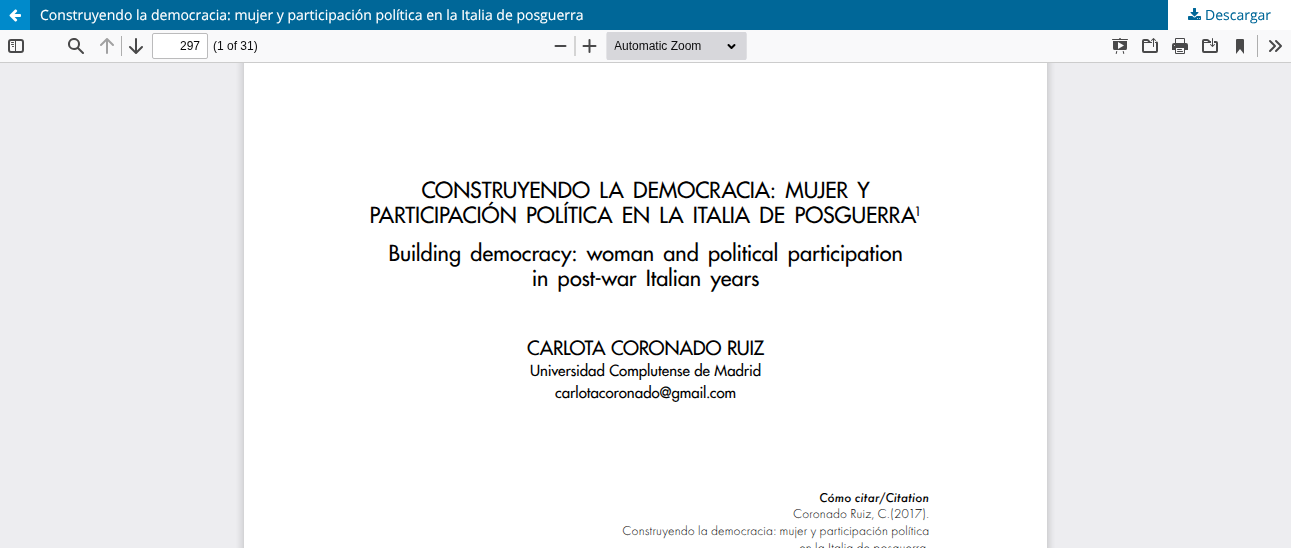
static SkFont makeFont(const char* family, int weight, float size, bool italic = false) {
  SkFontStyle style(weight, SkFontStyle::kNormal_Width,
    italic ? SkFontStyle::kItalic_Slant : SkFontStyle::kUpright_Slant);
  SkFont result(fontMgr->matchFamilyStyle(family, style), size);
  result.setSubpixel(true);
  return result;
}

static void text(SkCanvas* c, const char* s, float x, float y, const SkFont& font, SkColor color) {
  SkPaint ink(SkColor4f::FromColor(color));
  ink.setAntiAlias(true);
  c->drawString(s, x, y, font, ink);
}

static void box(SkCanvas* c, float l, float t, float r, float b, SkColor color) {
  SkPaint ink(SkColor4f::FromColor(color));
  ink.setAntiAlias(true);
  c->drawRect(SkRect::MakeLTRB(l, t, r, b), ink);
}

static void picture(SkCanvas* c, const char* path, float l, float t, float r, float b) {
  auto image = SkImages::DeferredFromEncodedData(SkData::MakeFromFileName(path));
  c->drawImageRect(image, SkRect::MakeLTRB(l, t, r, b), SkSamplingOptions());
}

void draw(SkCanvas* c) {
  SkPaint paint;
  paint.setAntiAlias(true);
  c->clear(0xffffffff);
  box(c, 30, 0, 1168, 30, 0xff006798);
  box(c, 0, 0, 30, 30, 0xff008acb);
  picture(c, "img_01.png", 9, 9, 21, 22);
  SkFont face1 = makeFont("Open Sans", 400, 14);
  text(c, "Construyendo la democracia: mujer y participación política en la Italia de posguerra", 40, 20, face1, 0xffffffff);
  picture(c, "img_02.png", 1188, 8, 1201, 20);
  text(c, "Descargar", 1205, 20, face1, 0xff006798);
  picture(c, "img_03.png", 0, 30, 1291, 548);
}
